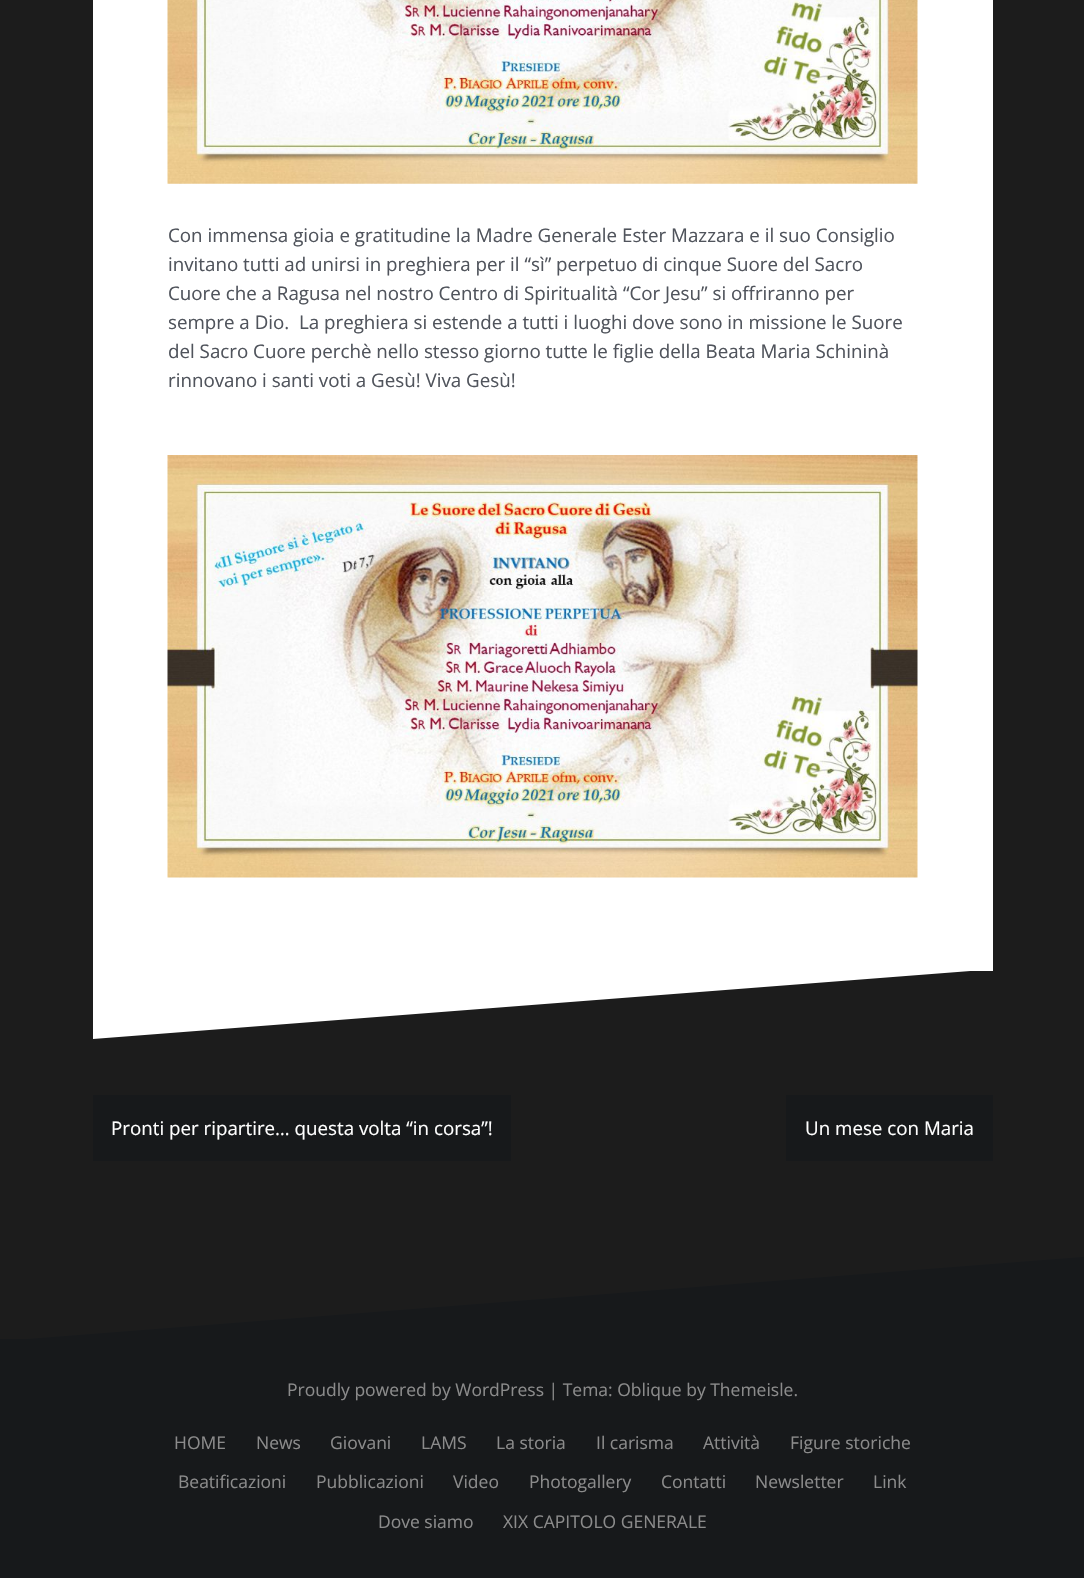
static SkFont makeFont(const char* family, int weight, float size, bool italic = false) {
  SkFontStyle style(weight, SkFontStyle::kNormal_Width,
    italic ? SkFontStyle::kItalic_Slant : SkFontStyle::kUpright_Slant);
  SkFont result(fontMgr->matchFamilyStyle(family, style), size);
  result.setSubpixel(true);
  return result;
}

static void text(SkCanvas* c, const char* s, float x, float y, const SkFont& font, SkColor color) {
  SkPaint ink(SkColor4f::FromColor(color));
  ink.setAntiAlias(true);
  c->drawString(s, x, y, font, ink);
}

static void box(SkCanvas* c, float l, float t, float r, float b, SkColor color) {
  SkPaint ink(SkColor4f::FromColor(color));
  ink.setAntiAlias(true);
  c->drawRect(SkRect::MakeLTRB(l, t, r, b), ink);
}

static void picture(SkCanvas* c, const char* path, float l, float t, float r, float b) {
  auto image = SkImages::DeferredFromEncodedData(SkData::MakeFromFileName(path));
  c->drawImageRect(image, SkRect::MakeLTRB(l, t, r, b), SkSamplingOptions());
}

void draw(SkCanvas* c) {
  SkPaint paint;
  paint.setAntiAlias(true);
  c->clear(0xff1c1c1c);
  box(c, 93, 0, 993, 971, 0xffffffff);
  picture(c, "img_01.png", 167, 0, 918, 184);
  SkFont face1 = makeFont("Open Sans", 400, 18.75f);
  text(c, "Con immensa gioia e gratitudine la Madre Generale Ester Mazzara e il suo Consiglio", 168, 242, face1, 0xff50545c);
  text(c, "invitano tutti ad unirsi in preghiera per il “sì” perpetuo di cinque Suore del Sacro", 168, 271, face1, 0xff50545c);
  text(c, "Cuore che a Ragusa nel nostro Centro di Spiritualità “Cor Jesu” si offriranno per", 168, 300, face1, 0xff50545c);
  text(c, "sempre a Dio.  La preghiera si estende a tutti i luoghi dove sono in missione le Suore", 168, 329, face1, 0xff50545c);
  text(c, "del Sacro Cuore perchè nello stesso giorno tutte le figlie della Beata Maria Schininà", 168, 358, face1, 0xff50545c);
  text(c, "rinnovano i santi voti a Gesù! Viva Gesù!", 168, 387, face1, 0xff50545c);
  picture(c, "img_02.png", 167, 455, 918, 878);
  c->save();
  c->clipRect(SkRect::MakeLTRB(93, 969, 993, 1039));
  paint.setColor(0xffffffff);
  c->drawPath(SkPathBuilder().moveTo(92, 1039).lineTo(92, 969).lineTo(995, 969).detach(), paint);
  c->restore();
  box(c, 93, 1095, 511, 1161, 0xff17191b);
  text(c, "Pronti per ripartire… questa volta “in corsa”!", 111, 1135, face1, 0xffffffff);
  box(c, 786, 1095, 993, 1161, 0xff17191b);
  text(c, "Un mese con Maria", 805, 1135, face1, 0xffffffff);
  box(c, 0, 1339, 1084, 1578, 0xff17191b);
  paint.setColor(0xff17191b);
  c->drawPath(SkPathBuilder().moveTo(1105, 1255).lineTo(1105, 1341).lineTo(0, 1341).detach(), paint);
  SkFont face2 = makeFont("Open Sans", 400, 17.5f);
  text(c, "Proudly powered by WordPress | Tema: Oblique by Themeisle.", 287, 1396, face2, 0xff8b8b8b);
  text(c, "HOME", 174, 1449, face2, 0xff8b8b8b);
  text(c, "News", 256, 1449, face2, 0xff8b8b8b);
  text(c, "Giovani", 330, 1449, face2, 0xff8b8b8b);
  text(c, "LAMS", 421, 1449, face2, 0xff8b8b8b);
  text(c, "La storia", 496, 1449, face2, 0xff8b8b8b);
  text(c, "Il carisma", 596, 1449, face2, 0xff8b8b8b);
  text(c, "Attività", 703, 1449, face2, 0xff8b8b8b);
  text(c, "Figure storiche", 790, 1449, face2, 0xff8b8b8b);
  text(c, "Beatificazioni", 178, 1488, face2, 0xff8b8b8b);
  text(c, "Pubblicazioni", 316, 1488, face2, 0xff8b8b8b);
  text(c, "Video", 453, 1488, face2, 0xff8b8b8b);
  text(c, "Photogallery", 529, 1488, face2, 0xff8b8b8b);
  text(c, "Contatti", 661, 1488, face2, 0xff8b8b8b);
  text(c, "Newsletter", 755, 1488, face2, 0xff8b8b8b);
  text(c, "Link", 873, 1488, face2, 0xff8b8b8b);
  text(c, "Dove siamo", 378, 1528, face2, 0xff8b8b8b);
  text(c, "XIX CAPITOLO GENERALE", 503, 1528, face2, 0xff8b8b8b);
}
